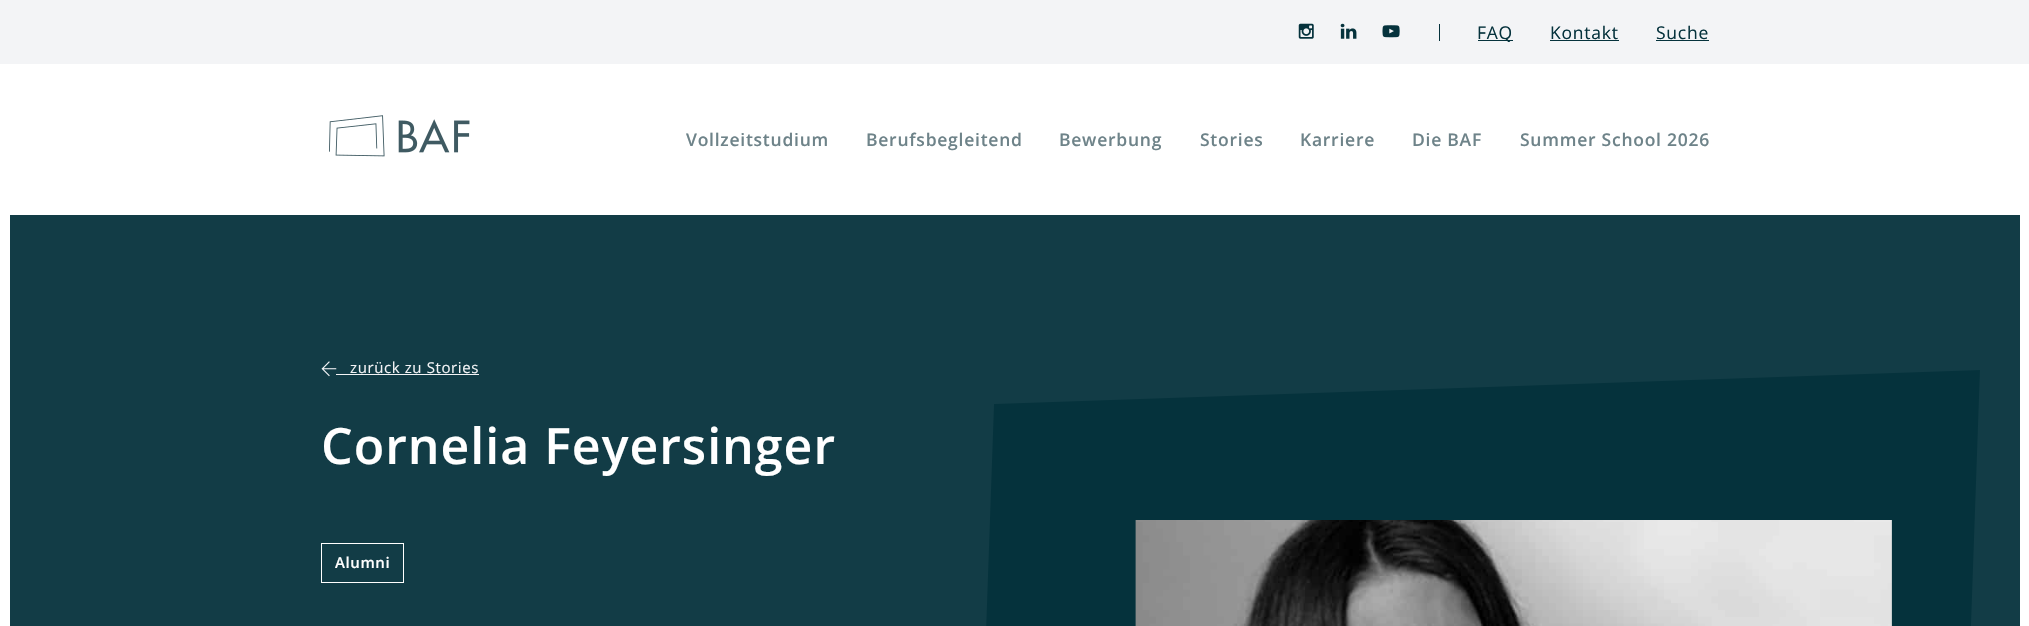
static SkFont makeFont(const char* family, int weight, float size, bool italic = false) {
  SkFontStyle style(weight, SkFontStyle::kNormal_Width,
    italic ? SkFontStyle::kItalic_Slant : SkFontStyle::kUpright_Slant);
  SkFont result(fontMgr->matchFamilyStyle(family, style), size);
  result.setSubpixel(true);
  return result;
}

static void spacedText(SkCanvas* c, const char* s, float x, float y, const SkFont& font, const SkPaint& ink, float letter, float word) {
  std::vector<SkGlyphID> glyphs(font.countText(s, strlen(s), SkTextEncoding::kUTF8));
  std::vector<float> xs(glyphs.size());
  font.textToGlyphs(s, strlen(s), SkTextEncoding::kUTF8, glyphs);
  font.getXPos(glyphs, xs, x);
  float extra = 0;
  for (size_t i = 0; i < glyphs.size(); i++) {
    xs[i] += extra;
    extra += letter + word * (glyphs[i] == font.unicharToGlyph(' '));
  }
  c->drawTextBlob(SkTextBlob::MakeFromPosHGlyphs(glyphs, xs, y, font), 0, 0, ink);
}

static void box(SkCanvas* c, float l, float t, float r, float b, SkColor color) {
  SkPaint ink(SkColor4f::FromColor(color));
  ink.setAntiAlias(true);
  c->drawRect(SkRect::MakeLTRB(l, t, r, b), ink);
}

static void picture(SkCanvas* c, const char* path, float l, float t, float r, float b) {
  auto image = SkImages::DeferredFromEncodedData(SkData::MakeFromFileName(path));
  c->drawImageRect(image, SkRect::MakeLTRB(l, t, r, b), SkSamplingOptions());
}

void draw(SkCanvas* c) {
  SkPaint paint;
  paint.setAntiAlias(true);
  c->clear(0xffffffff);
  box(c, 0, 0, 2029, 64, 0xfff3f4f6);
  picture(c, "img_01.png", 1298, 23, 1314, 39);
  picture(c, "img_02.png", 1340, 23, 1357, 39);
  picture(c, "img_03.png", 1382, 25, 1400, 38);
  box(c, 1439, 24, 1440, 41, 0xff05323c);
  box(c, 1478, 40, 1513, 41, 0xff05323c);
  SkFont face1 = makeFont("Open Sans", 400, 17.5f);
  paint.setColor(0xff05323c);
  spacedText(c, "FAQ", 1477, 39, face1, paint, 0.75f, 0);
  spacedText(c, "Kontakt", 1550, 39, face1, paint, 0.75f, 0);
  box(c, 1550, 40, 1619, 41, 0xff05323c);
  spacedText(c, "Suche", 1656, 39, face1, paint, 0.75f, 0);
  box(c, 1656, 40, 1709, 41, 0xff05323c);
  picture(c, "img_04.png", 329, 115, 470, 157);
  SkFont face2 = makeFont("Open Sans", 600, 17.5f);
  paint.setColor(0xff6e8389);
  spacedText(c, "Vollzeitstudium", 686, 146, face2, paint, 0.75f, 0);
  spacedText(c, "Berufsbegleitend", 866, 146, face2, paint, 0.75f, 0);
  spacedText(c, "Bewerbung", 1059, 146, face2, paint, 0.75f, 0);
  spacedText(c, "Stories", 1200, 146, face2, paint, 0.75f, 0);
  spacedText(c, "Karriere", 1300, 146, face2, paint, 0.75f, 0);
  spacedText(c, "Die BAF", 1412, 146, face2, paint, 0.75f, 0);
  spacedText(c, "Summer School 2026", 1520, 146, face2, paint, 0.75f, 0);
  box(c, 10, 215, 2020, 626, 0xff123c46);
  box(c, 336, 374, 479, 375, 0xfff3f4f6);
  picture(c, "img_05.png", 321, 361, 337, 377);
  SkFont face3 = makeFont("Open Sans", 400, 15);
  paint.setColor(0xfff3f4f6);
  spacedText(c, "zurück zu Stories", 350, 373, face3, paint, 0.6f, 0);
  SkFont face4 = makeFont("Open Sans", 600, 50);
  paint.setColor(0xffffffff);
  spacedText(c, "Cornelia Feyersinger", 321, 464, face4, paint, 1, 0);
  paint.setStyle(SkPaint::kStroke_Style);
  paint.setStrokeWidth(1);
  c->drawRect(SkRect::MakeLTRB(321.5f, 543.5f, 403.5f, 582.5f), paint);
  SkFont face5 = makeFont("Open Sans", 600, 15);
  paint.setStyle(SkPaint::kFill_Style);
  spacedText(c, "Alumni", 335, 568, face5, paint, 0.6f, 0);
  paint.setColor(0xff05323c);
  c->drawPath(SkPathBuilder().moveTo(994, 404).lineTo(1980, 370).lineTo(1957, 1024).lineTo(971, 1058).close().detach(), paint);
  picture(c, "img_06.png", 1135, 520, 1892, 626);
}
